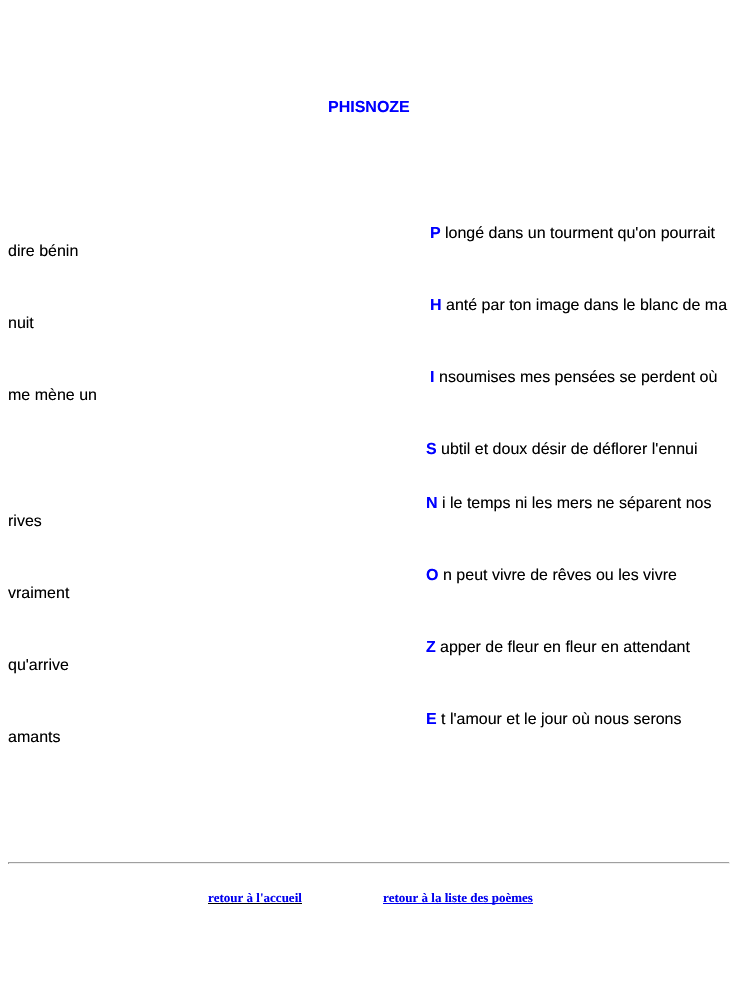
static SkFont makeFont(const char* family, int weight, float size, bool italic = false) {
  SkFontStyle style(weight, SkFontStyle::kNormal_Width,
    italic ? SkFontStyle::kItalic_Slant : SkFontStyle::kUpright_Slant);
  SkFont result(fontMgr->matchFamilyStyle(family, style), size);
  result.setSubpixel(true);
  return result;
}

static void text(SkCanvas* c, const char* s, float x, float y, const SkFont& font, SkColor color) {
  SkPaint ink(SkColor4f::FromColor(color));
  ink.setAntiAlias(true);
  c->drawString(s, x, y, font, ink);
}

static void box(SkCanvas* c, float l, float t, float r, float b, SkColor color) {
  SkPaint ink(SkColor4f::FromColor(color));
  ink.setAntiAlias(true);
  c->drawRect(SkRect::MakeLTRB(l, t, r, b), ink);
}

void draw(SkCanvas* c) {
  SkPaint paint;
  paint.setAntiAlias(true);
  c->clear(0xffffffff);
  SkFont face1 = makeFont("Liberation Sans", 700, 16);
  text(c, "PHISNOZE", 328, 112, face1, 0xff0000ff);
  text(c, "P", 430, 238, face1, 0xff0000ff);
  SkFont face2 = makeFont("Liberation Sans", 400, 16);
  text(c, "longé dans un tourment qu'on pourrait", 445, 238, face2, 0xff000000);
  text(c, "dire bénin", 8, 256, face2, 0xff000000);
  text(c, "H", 430, 310, face1, 0xff0000ff);
  text(c, "anté par ton image dans le blanc de ma", 446, 310, face2, 0xff000000);
  text(c, "nuit", 8, 328, face2, 0xff000000);
  text(c, "I", 430, 382, face1, 0xff0000ff);
  text(c, "nsoumises mes pensées se perdent où", 439, 382, face2, 0xff000000);
  text(c, "me mène un", 8, 400, face2, 0xff000000);
  text(c, "S", 426, 454, face1, 0xff0000ff);
  text(c, "ubtil et doux désir de déflorer l'ennui", 441, 454, face2, 0xff000000);
  text(c, "N", 426, 508, face1, 0xff0000ff);
  text(c, "i le temps ni les mers ne séparent nos", 442, 508, face2, 0xff000000);
  text(c, "rives", 8, 526, face2, 0xff000000);
  text(c, "O", 426, 580, face1, 0xff0000ff);
  text(c, "n peut vivre de rêves ou les vivre", 443, 580, face2, 0xff000000);
  text(c, "vraiment", 8, 598, face2, 0xff000000);
  text(c, "Z", 426, 652, face1, 0xff0000ff);
  text(c, "apper de fleur en fleur en attendant", 440, 652, face2, 0xff000000);
  text(c, "qu'arrive", 8, 670, face2, 0xff000000);
  text(c, "E", 426, 724, face1, 0xff0000ff);
  text(c, "t l'amour et le jour où nous serons", 441, 724, face2, 0xff000000);
  text(c, "amants", 8, 742, face2, 0xff000000);
  box(c, 8, 862, 730, 863, 0xff9f9f9f);
  box(c, 729, 862, 730, 864, 0xffeeeeee);
  box(c, 8, 863, 730, 864, 0xffeeeeee);
  box(c, 8, 862, 9, 864, 0xff9f9f9f);
  SkFont face3 = makeFont("Liberation Serif", 700, 13);
  text(c, "retour à l'accueil", 208, 902, face3, 0xff0000ee);
  box(c, 208, 903, 302, 904, 0xff000000);
  box(c, 383, 903, 533, 904, 0xff0000ee);
  text(c, "retour à la liste des poèmes", 383, 902, face3, 0xff0000ee);
}
